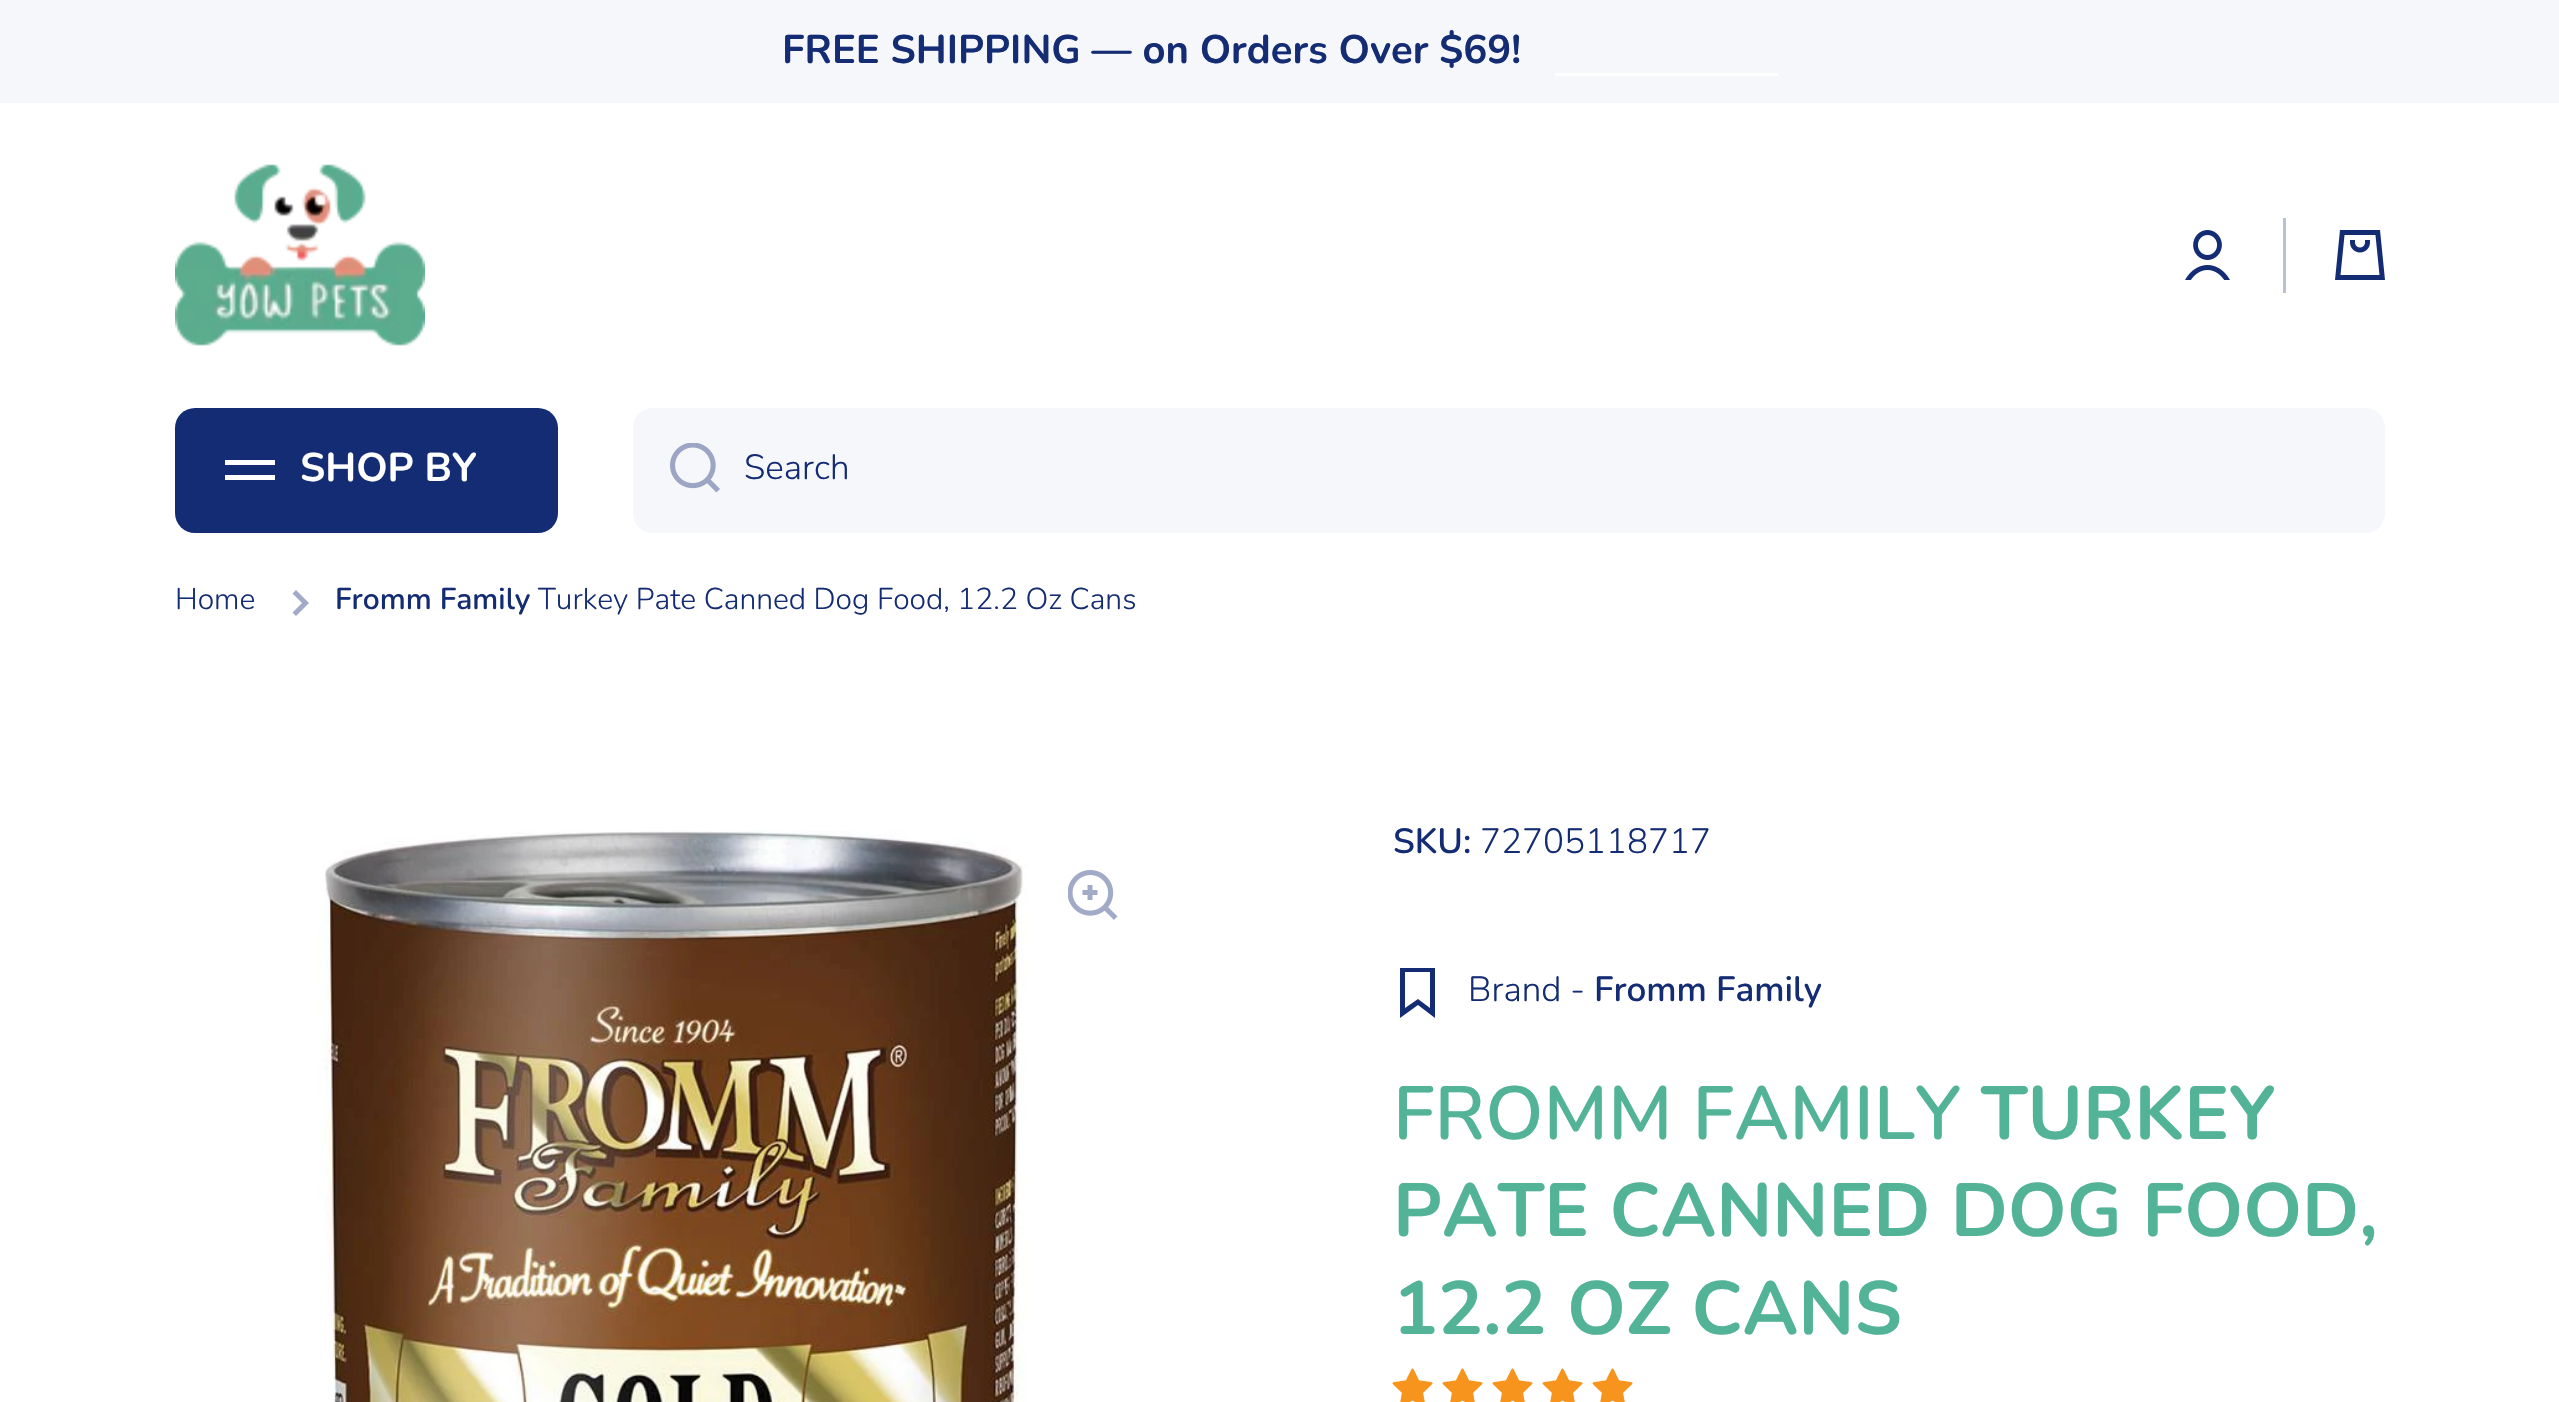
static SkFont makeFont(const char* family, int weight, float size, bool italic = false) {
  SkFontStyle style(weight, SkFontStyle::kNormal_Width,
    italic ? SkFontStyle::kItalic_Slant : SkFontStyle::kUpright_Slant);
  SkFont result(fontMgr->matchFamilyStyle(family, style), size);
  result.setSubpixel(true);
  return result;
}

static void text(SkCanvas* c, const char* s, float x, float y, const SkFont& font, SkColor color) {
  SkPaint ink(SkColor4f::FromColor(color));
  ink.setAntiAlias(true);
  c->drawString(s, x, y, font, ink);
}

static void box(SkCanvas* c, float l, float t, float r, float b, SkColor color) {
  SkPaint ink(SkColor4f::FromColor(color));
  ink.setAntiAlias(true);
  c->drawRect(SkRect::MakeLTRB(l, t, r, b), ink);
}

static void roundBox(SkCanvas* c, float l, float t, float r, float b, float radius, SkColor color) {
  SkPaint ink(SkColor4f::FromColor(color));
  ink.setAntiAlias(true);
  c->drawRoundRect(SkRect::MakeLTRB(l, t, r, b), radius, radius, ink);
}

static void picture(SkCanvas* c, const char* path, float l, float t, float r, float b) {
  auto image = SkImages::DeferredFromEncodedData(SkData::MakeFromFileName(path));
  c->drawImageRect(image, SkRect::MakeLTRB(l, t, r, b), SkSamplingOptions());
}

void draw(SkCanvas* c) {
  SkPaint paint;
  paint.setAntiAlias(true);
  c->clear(0xffffffff);
  box(c, 0, 0, 2559, 103, 0xfff6f7fa);
  SkFont face1 = makeFont("Nunito", 700, 40);
  text(c, "FREE SHIPPING — on Orders Over $69!", 782, 63, face1, 0xff142c73);
  box(c, 1555, 73, 1778, 76, 0xffffffff);
  picture(c, "img_01.png", 175, 164, 425, 346);
  picture(c, "img_02.png", 2185, 230, 2230, 280);
  box(c, 2283, 218, 2286, 293, 0xffb9c0d5);
  picture(c, "img_03.png", 2335, 230, 2385, 280);
  roundBox(c, 175, 408, 558, 533, 20, 0xff142c73);
  box(c, 225, 460, 275, 465, 0xffffffff);
  box(c, 225, 475, 275, 480, 0xffffffff);
  text(c, "SHOP BY", 300, 481, face1, 0xffffffff);
  roundBox(c, 633, 408, 2385, 533, 20, 0xfff6f7fa);
  picture(c, "img_04.png", 670, 443, 720, 493);
  SkFont face2 = makeFont("Nunito", 300, 35);
  text(c, "Search", 744, 479, face2, 0xff142c73);
  SkFont face3 = makeFont("Nunito", 300, 30);
  text(c, "Home", 175, 609, face3, 0xff142c73);
  paint.setColor(0xffa1abc7);
  c->drawPath(SkPathBuilder(SkPathFillType::kEvenOdd).moveTo(302, 603).lineTo(292.5f, 593.5f).lineTo(296, 590).lineTo(309, 603).lineTo(296, 616).lineTo(292.5f, 612.5f).close().detach(), paint);
  SkFont face4 = makeFont("Nunito", 600, 30);
  text(c, "Fromm Family", 335, 609, face4, 0xff142c73);
  text(c, "Turkey Pate Canned Dog Food, 12.2 Oz Cans", 538, 609, face3, 0xff142c73);
  picture(c, "img_05.png", 317, 830, 1028, 1402);
  picture(c, "img_06.png", 1068, 870, 1118, 920);
  SkFont face5 = makeFont("Nunito", 600, 35);
  text(c, "SKU:", 1393, 853, face5, 0xff142c73);
  text(c, "72705118717", 1480, 853, face2, 0xff142c73);
  paint.setColor(0xff142c73);
  c->drawPath(SkPathBuilder(SkPathFillType::kEvenOdd).moveTo(1418, 1005).lineTo(1435, 1018).lineTo(1435, 968).lineTo(1400, 968).lineTo(1400, 1018).close().moveTo(1405, 1008).lineTo(1418, 999).lineTo(1430, 1008).lineTo(1430, 972).lineTo(1405, 972).close().detach(), paint);
  text(c, "Brand -", 1468, 1001, face2, 0xff142c73);
  text(c, "Fromm Family", 1594, 1001, face5, 0xff142c73);
  SkFont face6 = makeFont("Nunito", 600, 75);
  text(c, "FROMM FAMILY", 1393, 1139, face6, 0xff53b397);
  SkFont face7 = makeFont("Nunito", 700, 75);
  text(c, "TURKEY", 1981, 1139, face7, 0xff53b397);
  text(c, "PATE CANNED DOG FOOD,", 1393, 1236, face7, 0xff53b397);
  text(c, "12.2 OZ CANS", 1393, 1334, face7, 0xff53b397);
  picture(c, "img_07.png", 1392, 1368, 1433, 1402);
  picture(c, "img_07.png", 1442, 1368, 1483, 1402);
  picture(c, "img_07.png", 1492, 1368, 1533, 1402);
  picture(c, "img_07.png", 1542, 1368, 1583, 1402);
  picture(c, "img_07.png", 1592, 1368, 1633, 1402);
}
